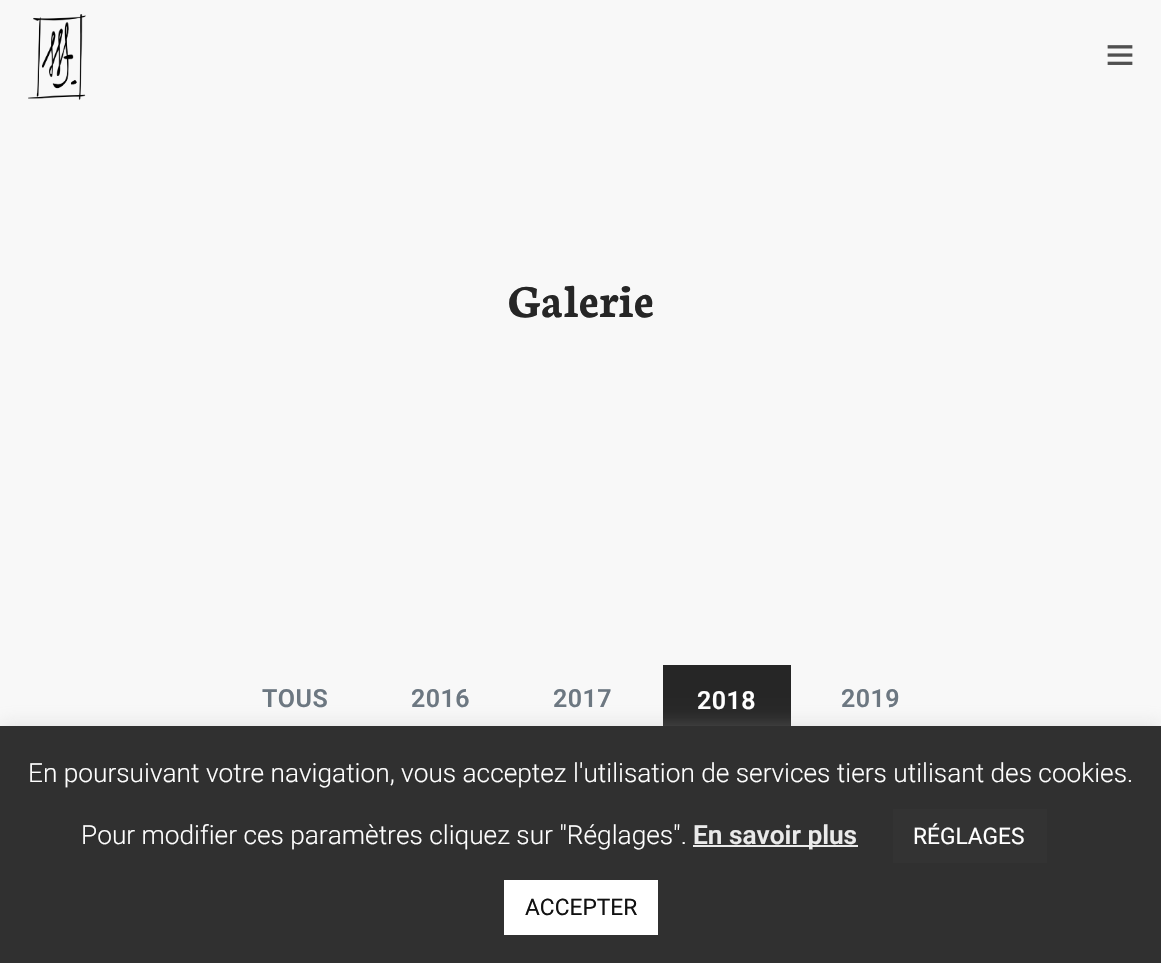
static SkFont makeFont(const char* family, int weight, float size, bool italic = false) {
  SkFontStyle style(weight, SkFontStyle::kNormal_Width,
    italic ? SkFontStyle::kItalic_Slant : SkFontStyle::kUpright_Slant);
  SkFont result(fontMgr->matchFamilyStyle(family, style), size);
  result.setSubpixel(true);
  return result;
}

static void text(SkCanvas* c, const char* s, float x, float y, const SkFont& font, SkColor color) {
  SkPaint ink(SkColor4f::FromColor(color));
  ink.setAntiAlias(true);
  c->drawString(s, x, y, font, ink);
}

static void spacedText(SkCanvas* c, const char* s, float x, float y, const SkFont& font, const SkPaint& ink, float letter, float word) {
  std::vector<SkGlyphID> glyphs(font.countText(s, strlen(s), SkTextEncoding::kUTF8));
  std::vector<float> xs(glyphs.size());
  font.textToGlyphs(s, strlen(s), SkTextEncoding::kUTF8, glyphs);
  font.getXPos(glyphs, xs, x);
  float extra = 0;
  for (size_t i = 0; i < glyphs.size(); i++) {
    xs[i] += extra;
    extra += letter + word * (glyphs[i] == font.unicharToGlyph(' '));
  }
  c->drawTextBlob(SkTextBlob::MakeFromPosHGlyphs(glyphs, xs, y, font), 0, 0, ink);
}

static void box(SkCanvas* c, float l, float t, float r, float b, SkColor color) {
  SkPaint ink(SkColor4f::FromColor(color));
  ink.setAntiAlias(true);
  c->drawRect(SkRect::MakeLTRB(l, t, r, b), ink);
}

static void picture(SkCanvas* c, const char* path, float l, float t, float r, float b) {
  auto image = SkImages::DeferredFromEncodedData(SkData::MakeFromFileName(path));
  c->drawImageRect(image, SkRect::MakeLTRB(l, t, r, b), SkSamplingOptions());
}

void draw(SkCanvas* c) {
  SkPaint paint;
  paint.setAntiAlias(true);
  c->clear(0xfff8f8f8);
  picture(c, "img_01.png", 28, 14, 86, 100);
  picture(c, "img_02.png", 1107, 45, 1133, 65);
  SkFont face1 = makeFont("Neuton", 700, 49);
  text(c, "Galerie", 508, 317, face1, 0xff262626);
  SkFont face2 = makeFont("Roboto", 600, 25);
  paint.setColor(0xff6c7781);
  spacedText(c, "TOUS", 262, 707, face2, paint, 0.5f, 0);
  spacedText(c, "2016", 411, 707, face2, paint, 0.5f, 0);
  spacedText(c, "2017", 553, 707, face2, paint, 0.5f, 0);
  box(c, 663, 665, 791, 726, 0xff262626);
  paint.setColor(0xffffffff);
  spacedText(c, "2018", 697, 709, face2, paint, 0.5f, 0);
  paint.setColor(0xff6c7781);
  spacedText(c, "2019", 841, 707, face2, paint, 0.5f, 0);
  paint.setColor(0x4dacabab);
  paint.setMaskFilter(SkMaskFilter::MakeBlur(kNormal_SkBlurStyle, 9));
  c->drawRect(SkRect::MakeLTRB(0, 725, 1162, 963), paint);
  paint.setMaskFilter(nullptr);
  box(c, 0, 726, 1161, 963, 0xff303030);
  SkFont face3 = makeFont("Roboto", 300, 26.25f);
  text(c, "En poursuivant votre navigation, vous acceptez l'utilisation de services tiers utilisant des cookies.", 28, 782, face3, 0xffffffff);
  text(c, "Pour modifier ces paramètres cliquez sur \"Réglages\".", 81, 844, face3, 0xffffffff);
  box(c, 693, 845, 858, 847, 0xffeaeaea);
  SkFont face4 = makeFont("Roboto", 600, 26.25f);
  text(c, "En savoir plus", 693, 844, face4, 0xffeaeaea);
  box(c, 893, 809, 1047, 863, 0xff333333);
  SkFont face5 = makeFont("Roboto", 400, 22.75f);
  text(c, "RÉGLAGES", 913, 844, face5, 0xffffffff);
  box(c, 504, 880, 658, 935, 0xffffffff);
  text(c, "ACCEPTER", 525, 915, face5, 0xff111111);
}
